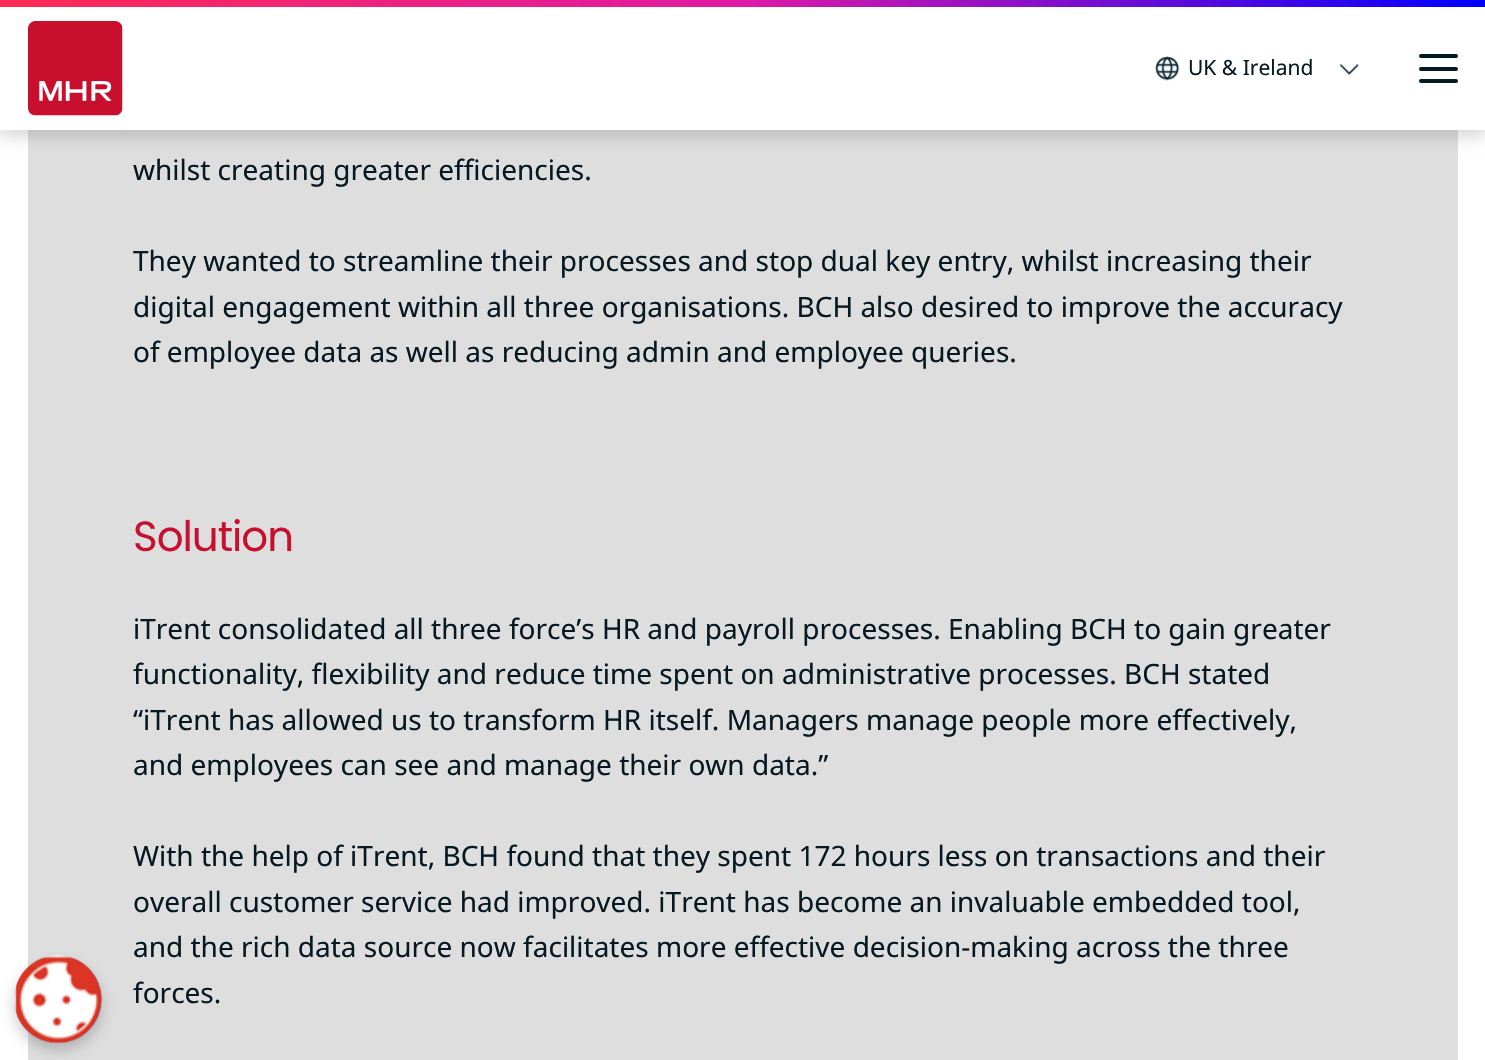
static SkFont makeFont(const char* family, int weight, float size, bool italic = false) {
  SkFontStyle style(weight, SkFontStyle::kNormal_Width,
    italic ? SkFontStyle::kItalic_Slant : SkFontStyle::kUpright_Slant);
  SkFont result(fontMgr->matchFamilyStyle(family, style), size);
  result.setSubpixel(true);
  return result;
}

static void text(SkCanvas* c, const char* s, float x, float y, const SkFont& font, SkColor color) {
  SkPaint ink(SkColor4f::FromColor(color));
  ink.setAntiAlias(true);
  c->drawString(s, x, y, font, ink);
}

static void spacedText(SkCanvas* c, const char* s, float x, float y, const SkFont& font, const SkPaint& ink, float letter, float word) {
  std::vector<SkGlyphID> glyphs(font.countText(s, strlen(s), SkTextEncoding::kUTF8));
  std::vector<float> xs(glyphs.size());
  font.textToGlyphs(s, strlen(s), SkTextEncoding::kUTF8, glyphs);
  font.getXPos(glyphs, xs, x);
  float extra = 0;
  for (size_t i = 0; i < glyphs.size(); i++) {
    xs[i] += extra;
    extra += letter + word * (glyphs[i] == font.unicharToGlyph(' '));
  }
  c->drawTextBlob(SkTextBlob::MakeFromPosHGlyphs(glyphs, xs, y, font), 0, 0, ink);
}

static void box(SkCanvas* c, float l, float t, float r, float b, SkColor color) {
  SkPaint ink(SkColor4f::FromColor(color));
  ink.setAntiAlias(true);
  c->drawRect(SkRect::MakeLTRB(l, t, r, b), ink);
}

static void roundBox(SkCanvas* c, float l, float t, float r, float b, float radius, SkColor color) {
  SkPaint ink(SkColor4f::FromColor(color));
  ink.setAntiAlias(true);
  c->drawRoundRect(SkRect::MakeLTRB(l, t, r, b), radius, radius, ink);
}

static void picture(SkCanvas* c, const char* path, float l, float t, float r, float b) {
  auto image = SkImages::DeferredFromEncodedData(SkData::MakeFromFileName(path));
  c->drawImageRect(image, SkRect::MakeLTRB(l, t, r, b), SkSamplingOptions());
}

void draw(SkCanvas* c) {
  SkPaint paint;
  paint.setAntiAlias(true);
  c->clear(0xffffffff);
  box(c, 28, 130, 1458, 1060, 0xffdedede);
  paint.setColor(0x33000000);
  paint.setMaskFilter(SkMaskFilter::MakeBlur(kNormal_SkBlurStyle, 7));
  c->drawRoundRect(SkRect::MakeLTRB(14, 963, 102, 1050), 43.5f, 43.5f, paint);
  paint.setMaskFilter(nullptr);
  roundBox(c, 14, 956, 102, 1043, 43.5f, 0xff6aaae4);
  picture(c, "img_01.png", 14, 955, 102, 1044);
  paint.setColor(0x26000000);
  paint.setMaskFilter(SkMaskFilter::MakeBlur(kNormal_SkBlurStyle, 7));
  c->drawRect(SkRect::MakeLTRB(0, 7, 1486, 137), paint);
  paint.setMaskFilter(nullptr);
  box(c, 0, 7, 1485, 130, 0xffffffff);
  {
    const SkColor colors[] = {0xffff2a54, 0xffde1aa6, 0xff0000ff};
    const float stops[] = {0, 0.5f, 1};
    const SkPoint ends[] = {{0, 3.5f}, {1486, 3.5f}};
    paint.setShader(SkGradientShader::MakeLinear(ends, colors, stops, 3, SkTileMode::kClamp));
    paint.setAlpha(255);
  }
  c->drawRect(SkRect::MakeLTRB(0, 0, 1485, 7), paint);
  picture(c, "img_02.png", 28, 21, 123, 116);
  picture(c, "img_03.png", 1155, 56, 1180, 81);
  SkFont face1 = makeFont("Noto Sans", 400, 21);
  text(c, "UK & Ireland", 1188, 75, face1, 0xff061822);
  picture(c, "img_04.png", 1339, 64, 1359, 76);
  roundBox(c, 1419, 54, 1458, 58, 2, 0xff061822);
  roundBox(c, 1419, 67, 1458, 71, 2, 0xff061822);
  roundBox(c, 1419, 79, 1458, 83, 2, 0xff061822);
  SkFont face2 = makeFont("Noto Sans", 400, 28);
  text(c, "whilst creating greater efficiencies.", 133, 180, face2, 0xff061822);
  text(c, "They wanted to streamline their processes and stop dual key entry, whilst increasing their", 133, 271, face2, 0xff061822);
  text(c, "digital engagement within all three organisations. BCH also desired to improve the accuracy", 133, 317, face2, 0xff061822);
  text(c, "of employee data as well as reducing admin and employee queries.", 133, 362, face2, 0xff061822);
  SkFont face3 = makeFont("Poppins", 400, 42);
  paint.setShader(nullptr);
  paint.setColor(0xffc8102e);
  spacedText(c, "Solution", 133, 551, face3, paint, -1, 0);
  text(c, "iTrent consolidated all three force’s HR and payroll processes. Enabling BCH to gain greater", 133, 639, face2, 0xff061822);
  text(c, "functionality, flexibility and reduce time spent on administrative processes. BCH stated", 133, 684, face2, 0xff061822);
  text(c, "“iTrent has allowed us to transform HR itself. Managers manage people more effectively,", 133, 730, face2, 0xff061822);
  text(c, "and employees can see and manage their own data.”", 133, 775, face2, 0xff061822);
  text(c, "With the help of iTrent, BCH found that they spent 172 hours less on transactions and their", 133, 866, face2, 0xff061822);
  text(c, "overall customer service had improved. iTrent has become an invaluable embedded tool,", 133, 912, face2, 0xff061822);
  text(c, "and the rich data source now facilitates more effective decision-making across the three", 133, 957, face2, 0xff061822);
  text(c, "forces.", 133, 1003, face2, 0xff061822);
}
